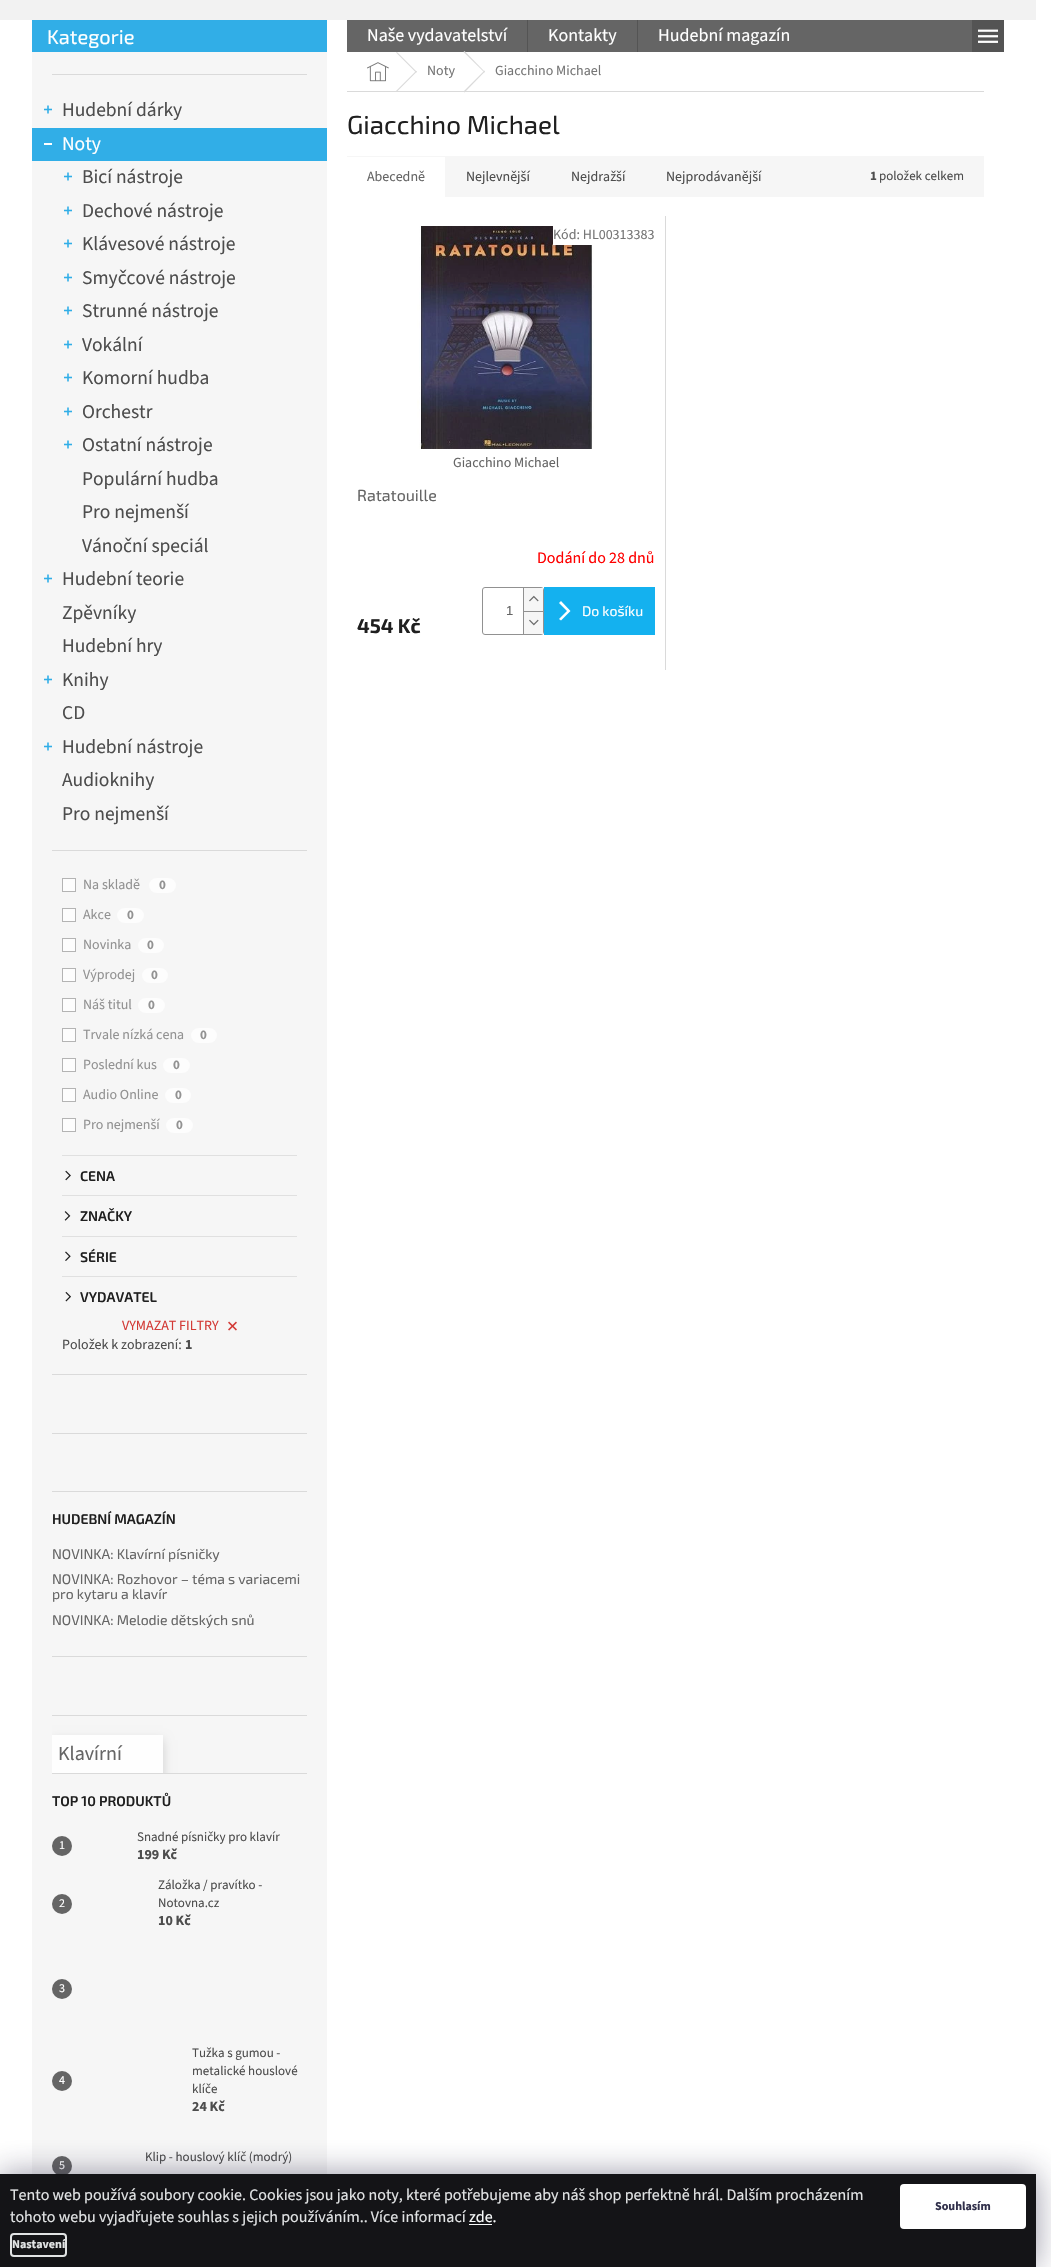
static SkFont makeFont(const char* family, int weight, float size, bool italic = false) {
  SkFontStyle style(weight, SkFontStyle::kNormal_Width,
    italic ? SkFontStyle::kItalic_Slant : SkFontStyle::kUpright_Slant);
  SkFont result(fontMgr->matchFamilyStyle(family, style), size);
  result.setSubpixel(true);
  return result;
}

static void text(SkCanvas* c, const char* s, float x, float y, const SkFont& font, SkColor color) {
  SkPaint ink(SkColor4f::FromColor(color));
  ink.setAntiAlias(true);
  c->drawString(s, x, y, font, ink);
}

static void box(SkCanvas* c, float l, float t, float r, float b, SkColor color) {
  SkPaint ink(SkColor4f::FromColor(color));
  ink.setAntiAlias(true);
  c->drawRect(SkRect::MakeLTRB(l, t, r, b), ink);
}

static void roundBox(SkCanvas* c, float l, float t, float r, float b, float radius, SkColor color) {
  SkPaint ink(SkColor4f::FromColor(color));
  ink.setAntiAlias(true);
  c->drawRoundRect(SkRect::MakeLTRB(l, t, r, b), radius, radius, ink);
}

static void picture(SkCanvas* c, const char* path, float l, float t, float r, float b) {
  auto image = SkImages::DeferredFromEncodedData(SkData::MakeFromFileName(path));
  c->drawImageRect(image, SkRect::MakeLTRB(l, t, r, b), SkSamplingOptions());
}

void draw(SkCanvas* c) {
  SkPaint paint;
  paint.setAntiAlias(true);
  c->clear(0xffffffff);
  box(c, 0, 0, 1036, 20, 0xfff2f2f2);
  box(c, 972, 20, 1004, 52, 0xff545454);
  picture(c, "img_01.png", 978, 29, 998, 43);
  box(c, 32, 52, 327, 2267, 0xfff6f6f6);
  box(c, 32, 20, 327, 52, 0xff31aee7);
  SkFont face1 = makeFont("Exo 2", 400, 20);
  text(c, "Kategorie", 47, 44, face1, 0xffffffff);
  box(c, 52, 74, 307, 75, 0xffdadada);
  box(c, 52, 850, 307, 851, 0xffdadada);
  picture(c, "img_02.png", 44, 105, 52, 114);
  SkFont face2 = makeFont("Source Sans 3", 400, 19.5f);
  text(c, "Hudební dárky", 62, 116, face2, 0xff4d4d4d);
  box(c, 32, 128, 327, 161, 0xff31aee7);
  box(c, 44, 143, 52, 145, 0xffffffff);
  text(c, "Noty", 62, 150, face2, 0xffffffff);
  picture(c, "img_02.png", 64, 172, 72, 181);
  text(c, "Bicí nástroje", 82, 183, face2, 0xff4d4d4d);
  picture(c, "img_02.png", 64, 206, 72, 215);
  text(c, "Dechové nástroje", 82, 217, face2, 0xff4d4d4d);
  picture(c, "img_02.png", 64, 239, 72, 248);
  text(c, "Klávesové nástroje", 82, 250, face2, 0xff4d4d4d);
  picture(c, "img_02.png", 64, 273, 72, 282);
  text(c, "Smyčcové nástroje", 82, 284, face2, 0xff4d4d4d);
  picture(c, "img_02.png", 64, 306, 72, 315);
  text(c, "Strunné nástroje", 82, 317, face2, 0xff4d4d4d);
  picture(c, "img_02.png", 64, 340, 72, 349);
  text(c, "Vokální", 82, 351, face2, 0xff4d4d4d);
  picture(c, "img_02.png", 64, 373, 72, 382);
  text(c, "Komorní hudba", 82, 384, face2, 0xff4d4d4d);
  picture(c, "img_02.png", 64, 407, 72, 416);
  text(c, "Orchestr", 82, 418, face2, 0xff4d4d4d);
  picture(c, "img_02.png", 64, 440, 72, 449);
  text(c, "Ostatní nástroje", 82, 451, face2, 0xff4d4d4d);
  text(c, "Populární hudba", 82, 485, face2, 0xff4d4d4d);
  text(c, "Pro nejmenší", 82, 518, face2, 0xff4d4d4d);
  text(c, "Vánoční speciál", 82, 552, face2, 0xff4d4d4d);
  picture(c, "img_02.png", 44, 574, 52, 583);
  text(c, "Hudební teorie", 62, 585, face2, 0xff4d4d4d);
  text(c, "Zpěvníky", 62, 619, face2, 0xff4d4d4d);
  text(c, "Hudební hry", 62, 652, face2, 0xff4d4d4d);
  picture(c, "img_02.png", 44, 675, 52, 684);
  text(c, "Knihy", 62, 686, face2, 0xff4d4d4d);
  text(c, "CD", 62, 719, face2, 0xff4d4d4d);
  picture(c, "img_02.png", 44, 742, 52, 751);
  text(c, "Hudební nástroje", 62, 753, face2, 0xff4d4d4d);
  text(c, "Audioknihy", 62, 786, face2, 0xff4d4d4d);
  text(c, "Pro nejmenší", 62, 820, face2, 0xff4d4d4d);
  box(c, 52, 1374, 307, 1375, 0xffdadada);
  paint.setColor(0xfffdfdfd);
  c->drawRect(SkRect::MakeLTRB(62.5f, 878.5f, 75.5f, 891.5f), paint);
  paint.setStyle(SkPaint::kStroke_Style);
  paint.setStrokeWidth(1);
  paint.setColor(0xffb4b4b4);
  c->drawRect(SkRect::MakeLTRB(62.5f, 878.5f, 75.5f, 891.5f), paint);
  SkFont face3 = makeFont("Source Sans 3", 400, 14);
  text(c, "Na skladě", 83, 889, face3, 0xff929292);
  roundBox(c, 149, 878, 176, 893, 7.5f, 0xfffdfdfd);
  SkFont face4 = makeFont("Source Sans 3", 700, 13);
  text(c, "0", 159, 889, face4, 0xff929292);
  paint.setStyle(SkPaint::kFill_Style);
  paint.setColor(0xfffdfdfd);
  c->drawRect(SkRect::MakeLTRB(62.5f, 908.5f, 75.5f, 921.5f), paint);
  paint.setStyle(SkPaint::kStroke_Style);
  paint.setColor(0xffb4b4b4);
  c->drawRect(SkRect::MakeLTRB(62.5f, 908.5f, 75.5f, 921.5f), paint);
  text(c, "Akce", 83, 919, face3, 0xff929292);
  roundBox(c, 117, 908, 144, 923, 7.5f, 0xfffdfdfd);
  text(c, "0", 127, 919, face4, 0xff929292);
  paint.setStyle(SkPaint::kFill_Style);
  paint.setColor(0xfffdfdfd);
  c->drawRect(SkRect::MakeLTRB(62.5f, 938.5f, 75.5f, 951.5f), paint);
  paint.setStyle(SkPaint::kStroke_Style);
  paint.setColor(0xffb4b4b4);
  c->drawRect(SkRect::MakeLTRB(62.5f, 938.5f, 75.5f, 951.5f), paint);
  text(c, "Novinka", 83, 949, face3, 0xff929292);
  roundBox(c, 138, 938, 164, 953, 7.5f, 0xfffdfdfd);
  text(c, "0", 147, 949, face4, 0xff929292);
  paint.setStyle(SkPaint::kFill_Style);
  paint.setColor(0xfffdfdfd);
  c->drawRect(SkRect::MakeLTRB(62.5f, 968.5f, 75.5f, 981.5f), paint);
  paint.setStyle(SkPaint::kStroke_Style);
  paint.setColor(0xffb4b4b4);
  c->drawRect(SkRect::MakeLTRB(62.5f, 968.5f, 75.5f, 981.5f), paint);
  text(c, "Výprodej", 83, 979, face3, 0xff929292);
  roundBox(c, 142, 968, 168, 983, 7.5f, 0xfffdfdfd);
  text(c, "0", 151, 979, face4, 0xff929292);
  paint.setStyle(SkPaint::kFill_Style);
  paint.setColor(0xfffdfdfd);
  c->drawRect(SkRect::MakeLTRB(62.5f, 998.5f, 75.5f, 1011.5f), paint);
  paint.setStyle(SkPaint::kStroke_Style);
  paint.setColor(0xffb4b4b4);
  c->drawRect(SkRect::MakeLTRB(62.5f, 998.5f, 75.5f, 1011.5f), paint);
  text(c, "Náš titul", 83, 1009, face3, 0xff929292);
  roundBox(c, 138, 998, 165, 1013, 7.5f, 0xfffdfdfd);
  text(c, "0", 148, 1009, face4, 0xff929292);
  paint.setStyle(SkPaint::kFill_Style);
  paint.setColor(0xfffdfdfd);
  c->drawRect(SkRect::MakeLTRB(62.5f, 1028.5f, 75.5f, 1041.5f), paint);
  paint.setStyle(SkPaint::kStroke_Style);
  paint.setColor(0xffb4b4b4);
  c->drawRect(SkRect::MakeLTRB(62.5f, 1028.5f, 75.5f, 1041.5f), paint);
  text(c, "Trvale nízká cena", 83, 1039, face3, 0xff929292);
  roundBox(c, 191, 1028, 217, 1043, 7.5f, 0xfffdfdfd);
  text(c, "0", 200, 1039, face4, 0xff929292);
  paint.setStyle(SkPaint::kFill_Style);
  paint.setColor(0xfffdfdfd);
  c->drawRect(SkRect::MakeLTRB(62.5f, 1058.5f, 75.5f, 1071.5f), paint);
  paint.setStyle(SkPaint::kStroke_Style);
  paint.setColor(0xffb4b4b4);
  c->drawRect(SkRect::MakeLTRB(62.5f, 1058.5f, 75.5f, 1071.5f), paint);
  text(c, "Poslední kus", 83, 1069, face3, 0xff929292);
  roundBox(c, 163, 1058, 190, 1073, 7.5f, 0xfffdfdfd);
  text(c, "0", 173, 1069, face4, 0xff929292);
  paint.setStyle(SkPaint::kFill_Style);
  paint.setColor(0xfffdfdfd);
  c->drawRect(SkRect::MakeLTRB(62.5f, 1088.5f, 75.5f, 1101.5f), paint);
  paint.setStyle(SkPaint::kStroke_Style);
  paint.setColor(0xffb4b4b4);
  c->drawRect(SkRect::MakeLTRB(62.5f, 1088.5f, 75.5f, 1101.5f), paint);
  text(c, "Audio Online", 83, 1099, face3, 0xff929292);
  roundBox(c, 165, 1088, 191, 1103, 7.5f, 0xfffdfdfd);
  text(c, "0", 175, 1099, face4, 0xff929292);
  paint.setStyle(SkPaint::kFill_Style);
  paint.setColor(0xfffdfdfd);
  c->drawRect(SkRect::MakeLTRB(62.5f, 1118.5f, 75.5f, 1131.5f), paint);
  paint.setStyle(SkPaint::kStroke_Style);
  paint.setColor(0xffb4b4b4);
  c->drawRect(SkRect::MakeLTRB(62.5f, 1118.5f, 75.5f, 1131.5f), paint);
  text(c, "Pro nejmenší", 83, 1129, face3, 0xff929292);
  roundBox(c, 166, 1118, 193, 1133, 7.5f, 0xfffdfdfd);
  text(c, "0", 176, 1129, face4, 0xff929292);
  box(c, 62, 1155, 297, 1156, 0xffe0e0e0);
  picture(c, "img_03.png", 65, 1170, 71, 1181);
  SkFont face5 = makeFont("Exo 2", 600, 14);
  text(c, "CENA", 80, 1181, face5, 0xff1f1f1f);
  box(c, 62, 1195, 297, 1196, 0xffe0e0e0);
  picture(c, "img_04.png", 64, 1211, 71, 1221);
  text(c, "ZNAČKY", 80, 1221, face5, 0xff1f1f1f);
  box(c, 62, 1236, 297, 1237, 0xffe0e0e0);
  picture(c, "img_05.png", 65, 1251, 71, 1261);
  text(c, "SÉRIE", 80, 1262, face5, 0xff1f1f1f);
  box(c, 62, 1276, 297, 1277, 0xffe0e0e0);
  picture(c, "img_06.png", 65, 1291, 71, 1302);
  text(c, "VYDAVATEL", 80, 1302, face5, 0xff1f1f1f);
  text(c, "VYMAZAT FILTRY", 122, 1330, face3, 0xffd33a36);
  picture(c, "img_07.png", 228, 1321, 237, 1331);
  text(c, "Položek k zobrazení:", 62, 1349, face3, 0xff4d4d4d);
  SkFont face6 = makeFont("Source Sans 3", 700, 14);
  text(c, "1", 185, 1349, face6, 0xff4d4d4d);
  box(c, 52, 1433, 307, 1434, 0xffdadada);
  box(c, 52, 1491, 307, 1492, 0xffdadada);
  box(c, 52, 1656, 307, 1657, 0xffdadada);
  text(c, "HUDEBNÍ MAGAZÍN", 52, 1524, face5, 0xff1f1f1f);
  SkFont face7 = makeFont("Exo 2", 400, 14);
  text(c, "NOVINKA: Klavírní písničky", 52, 1559, face7, 0xff656565);
  text(c, "NOVINKA: Rozhovor – téma s variacemi", 52, 1584, face7, 0xff656565);
  text(c, "pro kytaru a klavír", 52, 1599, face7, 0xff656565);
  text(c, "NOVINKA: Melodie dětských snů", 52, 1625, face7, 0xff656565);
  box(c, 52, 1715, 307, 1716, 0xffdadada);
  box(c, 52, 1773, 307, 1774, 0xffdadada);
  c->save();
  c->clipRect(SkRect::MakeLTRB(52, 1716, 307, 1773));
  paint.setStyle(SkPaint::kFill_Style);
  paint.setColor(0x29000000);
  paint.setMaskFilter(SkMaskFilter::MakeBlur(kNormal_SkBlurStyle, 5));
  c->drawRect(SkRect::MakeLTRB(52, 1740, 163, 1807), paint);
  paint.setMaskFilter(nullptr);
  c->restore();
  box(c, 52, 1735, 163, 1773, 0xfffefefe);
  SkFont face8 = makeFont("Source Sans 3", 400, 20);
  text(c, "Klavírní", 58, 1760, face8, 0xff656565);
  text(c, "TOP 10 PRODUKTŮ", 52, 1806, face5, 0xff1f1f1f);
  paint.setColor(0xff656565);
  c->drawCircle(62, 1846, 10, paint);
  SkFont face9 = makeFont("Source Sans 3", 400, 12);
  text(c, "1", 59, 1849, face9, 0xffffffff);
  SkFont face10 = makeFont("Source Sans 3", 400, 13);
  text(c, "Snadné písničky pro klavír", 137, 1841, face10, 0xff4d4d4d);
  text(c, "199 Kč", 137, 1859, face6, 0xff4d4d4d);
  c->drawCircle(62, 1904, 10, paint);
  text(c, "2", 59, 1907, face9, 0xffffffff);
  text(c, "Záložka / pravítko -", 158, 1889, face10, 0xff4d4d4d);
  text(c, "Notovna.cz", 158, 1907, face10, 0xff4d4d4d);
  text(c, "10 Kč", 158, 1925, face6, 0xff4d4d4d);
  c->drawCircle(62, 1989, 10, paint);
  text(c, "3", 59, 1992, face9, 0xffffffff);
  c->drawCircle(62, 2081, 10, paint);
  text(c, "4", 59, 2084, face9, 0xffffffff);
  text(c, "Tužka s gumou -", 192, 2057, face10, 0xff4d4d4d);
  text(c, "metalické houslové", 192, 2075, face10, 0xff4d4d4d);
  text(c, "klíče", 192, 2093, face10, 0xff4d4d4d);
  text(c, "24 Kč", 192, 2111, face6, 0xff4d4d4d);
  text(c, "Klip - houslový klíč (modrý)", 145, 2161, face10, 0xff4d4d4d);
  c->drawCircle(62, 2166, 10, paint);
  text(c, "5", 59, 2169, face9, 0xffffffff);
  box(c, 347, 20, 972, 52, 0xff656565);
  SkFont face11 = makeFont("Source Sans 3", 400, 18);
  text(c, "Naše vydavatelství", 367, 41, face11, 0xffffffff);
  box(c, 527, 20, 528, 52, 0xff545454);
  text(c, "Kontakty", 548, 41, face11, 0xffffffff);
  box(c, 637, 20, 638, 52, 0xff545454);
  text(c, "Hudební magazín", 658, 41, face11, 0xffffffff);
  box(c, 347, 91, 984, 92, 0xffdadada);
  picture(c, "img_08.png", 367, 62, 389, 82);
  paint.setColor(0xffdadada);
  c->drawPath(SkPathBuilder().moveTo(396, 52.5f).lineTo(397, 52).lineTo(417, 72).lineTo(416, 72.5f).close().detach(), paint);
  c->drawPath(SkPathBuilder().moveTo(416, 71).lineTo(417, 71.5f).lineTo(397, 91.5f).lineTo(396, 91).close().detach(), paint);
  text(c, "Noty", 427, 75, face3, 0xff767676);
  c->drawPath(SkPathBuilder().moveTo(463.5f, 52).lineTo(464.5f, 51).lineTo(485, 72).lineTo(484.5f, 72.5f).close().detach(), paint);
  c->drawPath(SkPathBuilder().moveTo(484.5f, 70.5f).lineTo(485, 71.5f).lineTo(464.5f, 92.5f).lineTo(463.5f, 91.5f).close().detach(), paint);
  text(c, "Giacchino Michael", 495, 75, face3, 0xff767676);
  SkFont face12 = makeFont("Exo 2", 400, 26);
  text(c, "Giacchino Michael", 347, 134, face12, 0xff1f1f1f);
  box(c, 347, 156, 984, 197, 0xfff6f6f6);
  box(c, 347, 157, 445, 197, 0xffffffff);
  text(c, "Abecedně", 367, 181, face3, 0xff656565);
  text(c, "Nejlevnější", 466, 181, face3, 0xff4d4d4d);
  text(c, "Nejdražší", 571, 181, face3, 0xff4d4d4d);
  text(c, "Nejprodávanější", 666, 181, face3, 0xff4d4d4d);
  text(c, "1", 870, 180, face4, 0xff4d4d4d);
  text(c, "položek celkem", 879, 180, face10, 0xff4d4d4d);
  box(c, 665, 216, 666, 670, 0xffdadada);
  picture(c, "img_09.png", 417, 226, 594, 449);
  box(c, 553, 226, 594, 245, 0xffffffff);
  text(c, "Kód: HL00313383", 553, 239, face3, 0xff767676);
  text(c, "Giacchino Michael", 453, 467, face3, 0xff656565);
  SkFont face13 = makeFont("Exo 2", 400, 16);
  text(c, "Ratatouille", 357, 501, face13, 0xff656565);
  SkFont face14 = makeFont("Source Sans 3", 400, 16);
  text(c, "Dodání do 28 dnů", 537, 563, face14, 0xfffe0000);
  paint.setStyle(SkPaint::kStroke_Style);
  paint.setColor(0xff919191);
  c->drawRoundRect(SkRect::MakeLTRB(482.5f, 587.5f, 543.5f, 634.5f), 2.5f, 2.5f, paint);
  SkFont face15 = makeFont("Liberation Sans", 400, 13);
  text(c, "1", 506, 615, face15, 0xff656565);
  box(c, 524, 588, 543, 611, 0xfff6f6f6);
  box(c, 523, 588, 524, 611, 0xff919191);
  picture(c, "img_10.png", 529, 595, 539, 602);
  box(c, 524, 612, 543, 634, 0xfff6f6f6);
  box(c, 523, 611, 543, 612, 0xff919191);
  box(c, 523, 611, 524, 634, 0xff919191);
  picture(c, "img_11.png", 529, 619, 539, 626);
  box(c, 544, 587, 655, 635, 0xff14b1ef);
  paint.setStyle(SkPaint::kFill_Style);
  paint.setColor(0xffffffff);
  c->drawPath(SkPathBuilder().moveTo(561, 620.5f).lineTo(559, 619).lineTo(567, 611).lineTo(559, 603).lineTo(561, 601).lineTo(570.5f, 611).close().detach(), paint);
  text(c, "Do košíku", 582, 616, face7, 0xffffffff);
  SkFont face16 = makeFont("Exo 2", 700, 20);
  text(c, "454 Kč", 357, 633, face16, 0xff1f1f1f);
  c->save();
  c->clipPath(SkPathBuilder(SkPathFillType::kEvenOdd).moveTo(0, 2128).lineTo(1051, 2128).lineTo(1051, 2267).lineTo(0, 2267).close().moveTo(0, 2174).lineTo(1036, 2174).lineTo(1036, 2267).lineTo(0, 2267).close().detach(), true);
  paint.setColor(0x731b1939);
  paint.setMaskFilter(SkMaskFilter::MakeBlur(kNormal_SkBlurStyle, 15));
  c->drawRect(SkRect::MakeLTRB(0, 2174, 1036, 2267), paint);
  paint.setMaskFilter(nullptr);
  c->restore();
  box(c, 0, 2174, 1036, 2267, 0xe61a1937);
  box(c, 0, 2174, 1036, 2267, 0xe6111111);
  text(c, "Tento web používá soubory cookie. Cookies jsou jako noty, které potřebujeme aby náš shop perfektně hrál. Dalším procházením", 10, 2200, face14, 0xffe1e3e4);
  text(c, "tohoto webu vyjadřujete souhlas s jejich používáním.. Více informací", 10, 2222, face14, 0xffe1e3e4);
  text(c, "zde.", 469, 2222, face14, 0xfff9fbfb);
  box(c, 469, 2224, 492, 2225, 0xfff9fbfb);
  paint.setStyle(SkPaint::kStroke_Style);
  paint.setStrokeWidth(2);
  paint.setColor(0xffe1e3e4);
  c->drawRoundRect(SkRect::MakeLTRB(11, 2234, 66, 2256), 3, 3, paint);
  SkFont face17 = makeFont("Source Sans 3", 700, 12);
  text(c, "Nastavení", 12, 2248, face17, 0xffe1e3e4);
  roundBox(c, 900, 2184, 1026, 2229, 4, 0xffffffff);
  text(c, "Souhlasím", 935, 2210, face17, 0xff31304b);
}
